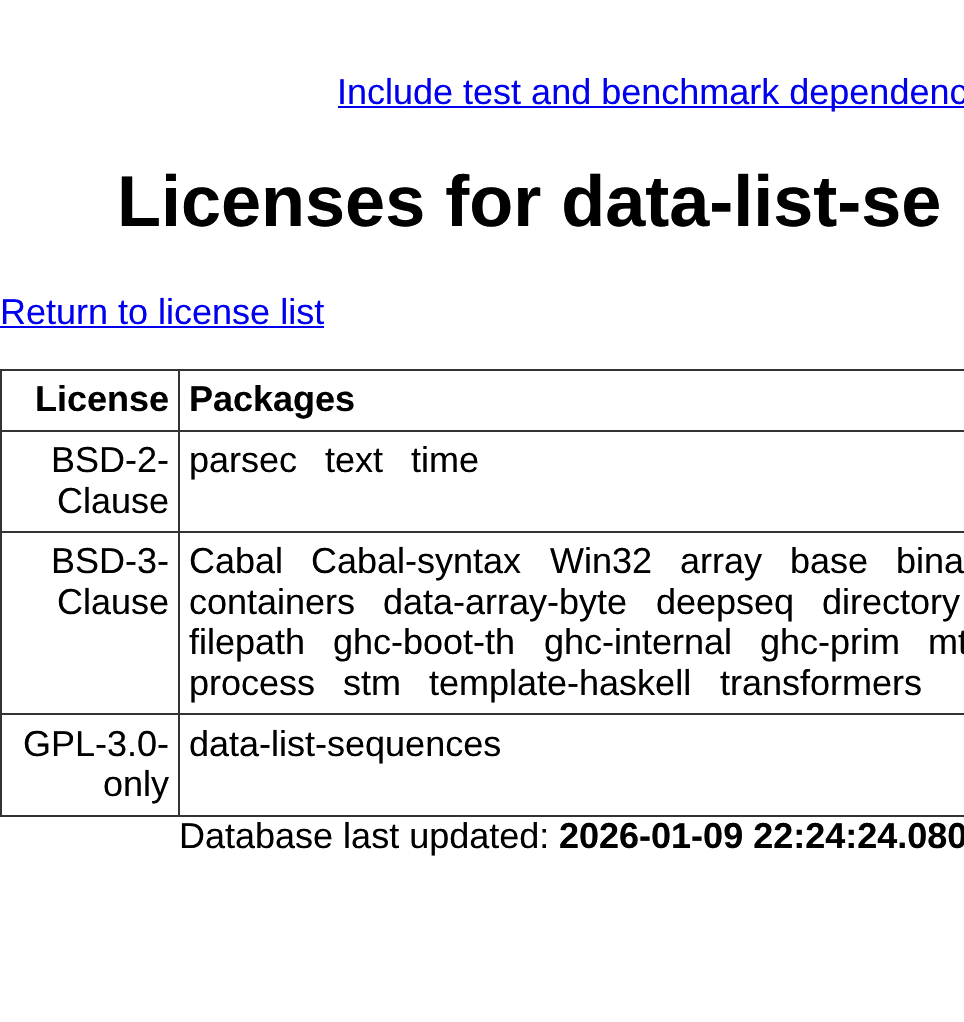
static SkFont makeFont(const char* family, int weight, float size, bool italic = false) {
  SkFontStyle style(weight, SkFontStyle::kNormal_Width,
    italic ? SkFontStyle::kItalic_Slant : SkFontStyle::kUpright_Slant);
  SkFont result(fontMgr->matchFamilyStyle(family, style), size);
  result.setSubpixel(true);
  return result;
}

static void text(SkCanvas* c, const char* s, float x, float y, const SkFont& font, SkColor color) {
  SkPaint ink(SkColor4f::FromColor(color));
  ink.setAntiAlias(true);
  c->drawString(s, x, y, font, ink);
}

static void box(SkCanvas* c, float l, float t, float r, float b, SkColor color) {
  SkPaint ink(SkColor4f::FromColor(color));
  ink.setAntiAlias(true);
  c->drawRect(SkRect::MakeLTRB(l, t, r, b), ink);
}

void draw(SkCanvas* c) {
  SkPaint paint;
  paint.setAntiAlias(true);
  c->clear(0xffffffff);
  box(c, 338, 106, 964, 108, 0xff0000ee);
  SkFont face1 = makeFont("Liberation Sans", 400, 36);
  text(c, "Include test and benchmark dependenc", 337, 104, face1, 0xff0000ee);
  SkFont face2 = makeFont("Liberation Sans", 700, 72);
  text(c, "Licenses for data-list-se", 117, 226, face2, 0xff000000);
  text(c, "Return to license list", 0, 324, face1, 0xff0000ee);
  box(c, 0, 326, 324, 328, 0xff0000ee);
  box(c, 178, 369, 964, 371, 0xff333333);
  box(c, 178, 430, 964, 432, 0xff333333);
  box(c, 178, 531, 964, 533, 0xff333333);
  box(c, 178, 713, 964, 715, 0xff333333);
  box(c, 178, 815, 964, 817, 0xff333333);
  box(c, 178, 713, 180, 817, 0xff333333);
  box(c, 0, 713, 180, 715, 0xff333333);
  box(c, 178, 531, 180, 716, 0xff333333);
  box(c, 0, 531, 180, 533, 0xff333333);
  box(c, 178, 430, 180, 533, 0xff333333);
  box(c, 0, 430, 180, 432, 0xff333333);
  box(c, 178, 369, 180, 432, 0xff333333);
  box(c, 0, 369, 180, 371, 0xff333333);
  box(c, 0, 815, 180, 817, 0xff333333);
  box(c, 0, 713, 2, 817, 0xff333333);
  box(c, 0, 531, 2, 716, 0xff333333);
  box(c, 0, 430, 2, 533, 0xff333333);
  box(c, 0, 369, 2, 432, 0xff333333);
  SkFont face3 = makeFont("Liberation Sans", 700, 36);
  text(c, "License", 35, 411, face3, 0xff000000);
  text(c, "Packages", 189, 411, face3, 0xff000000);
  text(c, "BSD-2-", 51, 472, face1, 0xff000000);
  text(c, "Clause", 57, 513, face1, 0xff000000);
  text(c, "parsec", 189, 472, face1, 0xff000000);
  text(c, "text", 325, 472, face1, 0xff000000);
  text(c, "time", 411, 472, face1, 0xff000000);
  text(c, "BSD-3-", 51, 573, face1, 0xff000000);
  text(c, "Clause", 57, 614, face1, 0xff000000);
  text(c, "Cabal", 189, 573, face1, 0xff000000);
  text(c, "Cabal-syntax", 311, 573, face1, 0xff000000);
  text(c, "Win32", 550, 573, face1, 0xff000000);
  text(c, "array", 680, 573, face1, 0xff000000);
  text(c, "base", 790, 573, face1, 0xff000000);
  text(c, "bina", 896, 573, face1, 0xff000000);
  text(c, "containers", 189, 614, face1, 0xff000000);
  text(c, "data-array-byte", 383, 614, face1, 0xff000000);
  text(c, "deepseq", 656, 614, face1, 0xff000000);
  text(c, "directory", 822, 614, face1, 0xff000000);
  text(c, "filepath", 189, 654, face1, 0xff000000);
  text(c, "ghc-boot-th", 333, 654, face1, 0xff000000);
  text(c, "ghc-internal", 544, 654, face1, 0xff000000);
  text(c, "ghc-prim", 760, 654, face1, 0xff000000);
  text(c, "mt", 928, 654, face1, 0xff000000);
  text(c, "process", 189, 695, face1, 0xff000000);
  text(c, "stm", 343, 695, face1, 0xff000000);
  text(c, "template-haskell", 429, 695, face1, 0xff000000);
  text(c, "transformers", 720, 695, face1, 0xff000000);
  text(c, "GPL-3.0-", 23, 756, face1, 0xff000000);
  text(c, "only", 103, 796, face1, 0xff000000);
  text(c, "data-list-sequences", 189, 756, face1, 0xff000000);
  text(c, "Database last updated:", 179, 848, face1, 0xff000000);
  text(c, "2026-01-09 22:24:24.080", 559, 848, face3, 0xff000000);
}
